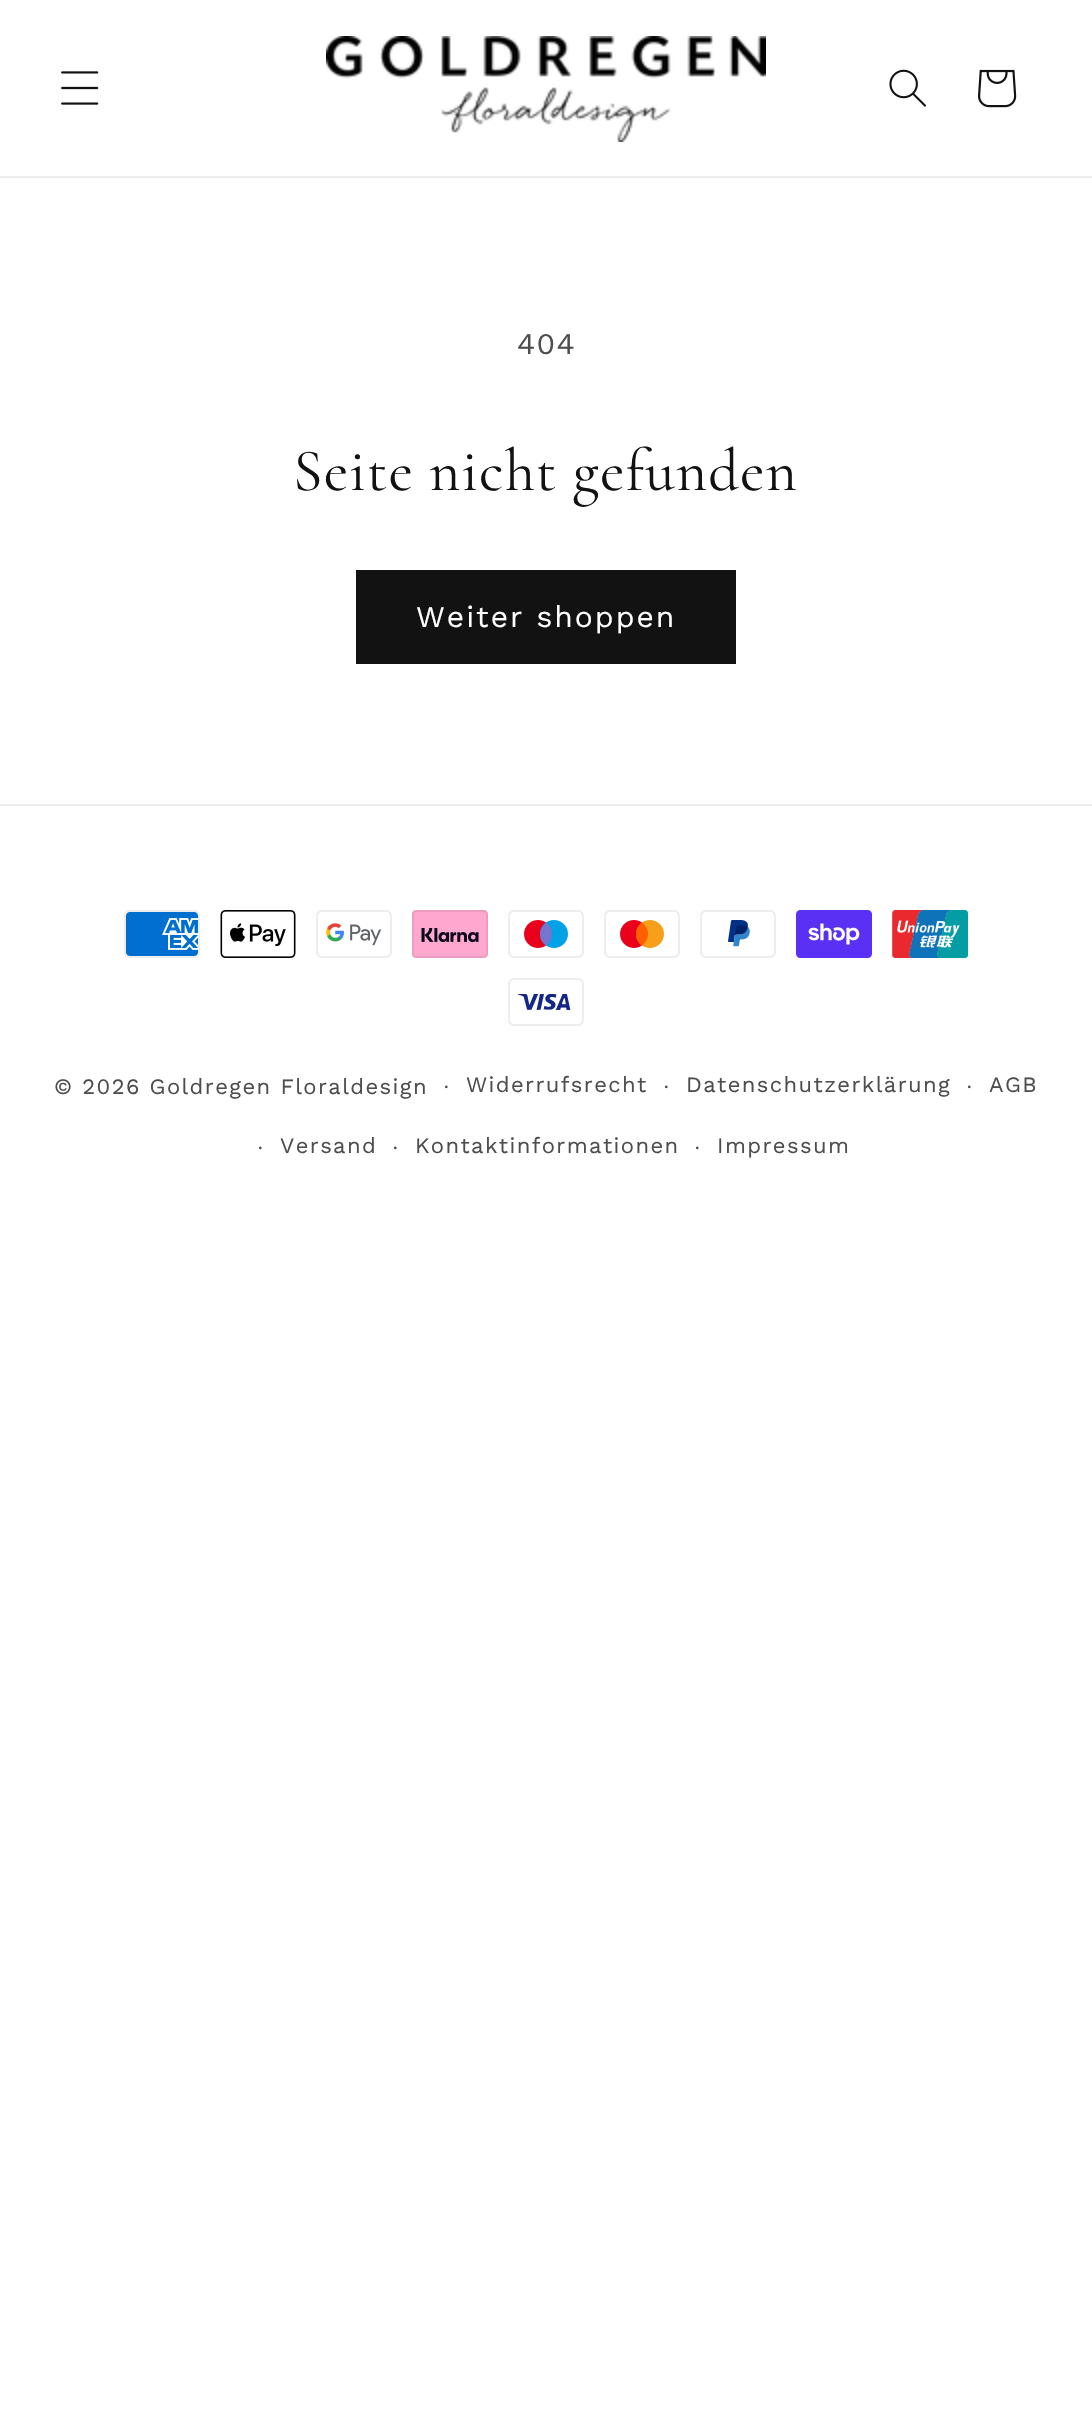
static SkFont makeFont(const char* family, int weight, float size, bool italic = false) {
  SkFontStyle style(weight, SkFontStyle::kNormal_Width,
    italic ? SkFontStyle::kItalic_Slant : SkFontStyle::kUpright_Slant);
  SkFont result(fontMgr->matchFamilyStyle(family, style), size);
  result.setSubpixel(true);
  return result;
}

static void spacedText(SkCanvas* c, const char* s, float x, float y, const SkFont& font, const SkPaint& ink, float letter, float word) {
  std::vector<SkGlyphID> glyphs(font.countText(s, strlen(s), SkTextEncoding::kUTF8));
  std::vector<float> xs(glyphs.size());
  font.textToGlyphs(s, strlen(s), SkTextEncoding::kUTF8, glyphs);
  font.getXPos(glyphs, xs, x);
  float extra = 0;
  for (size_t i = 0; i < glyphs.size(); i++) {
    xs[i] += extra;
    extra += letter + word * (glyphs[i] == font.unicharToGlyph(' '));
  }
  c->drawTextBlob(SkTextBlob::MakeFromPosHGlyphs(glyphs, xs, y, font), 0, 0, ink);
}

static void box(SkCanvas* c, float l, float t, float r, float b, SkColor color) {
  SkPaint ink(SkColor4f::FromColor(color));
  ink.setAntiAlias(true);
  c->drawRect(SkRect::MakeLTRB(l, t, r, b), ink);
}

static void picture(SkCanvas* c, const char* path, float l, float t, float r, float b) {
  auto image = SkImages::DeferredFromEncodedData(SkData::MakeFromFileName(path));
  c->drawImageRect(image, SkRect::MakeLTRB(l, t, r, b), SkSamplingOptions());
}

void draw(SkCanvas* c) {
  SkPaint paint;
  paint.setAntiAlias(true);
  c->clear(0xffffffff);
  box(c, 0, 176, 1092, 178, 0xffececec);
  picture(c, "img_01.png", 61, 71, 99, 105);
  picture(c, "img_02.png", 326, 36, 766, 142);
  picture(c, "img_03.png", 889, 69, 926, 107);
  picture(c, "img_04.png", 978, 69, 1017, 108);
  SkFont face1 = makeFont("Work Sans", 400, 30);
  paint.setColor(0xff4d4d4d);
  spacedText(c, "404", 517, 354, face1, paint, 1.2f, 0);
  SkFont face2 = makeFont("Cormorant", 400, 60);
  paint.setColor(0xff121212);
  spacedText(c, "Seite nicht gefunden", 293, 490, face2, paint, 1.2f, 0);
  box(c, 356, 570, 736, 664, 0xff121212);
  paint.setColor(0xffffffff);
  spacedText(c, "Weiter shoppen", 416, 627, face1, paint, 2, 0);
  box(c, 0, 804, 1092, 806, 0xffececec);
  picture(c, "img_05.png", 124, 910, 200, 958);
  picture(c, "img_06.png", 220, 910, 296, 958);
  picture(c, "img_07.png", 316, 910, 392, 958);
  picture(c, "img_08.png", 412, 910, 488, 958);
  picture(c, "img_09.png", 508, 910, 584, 958);
  picture(c, "img_10.png", 604, 910, 680, 958);
  picture(c, "img_11.png", 700, 910, 776, 958);
  picture(c, "img_12.png", 796, 910, 872, 958);
  picture(c, "img_13.png", 892, 910, 968, 958);
  picture(c, "img_14.png", 508, 978, 584, 1026);
  SkFont face3 = makeFont("Work Sans", 400, 22);
  paint.setColor(0xff4d4d4d);
  spacedText(c, "© 2026 Goldregen Floraldesign", 54, 1094, face3, paint, 1.4f, 0);
  SkFont face4 = makeFont("Work Sans", 400, 20);
  spacedText(c, "·", 444, 1094, face4, paint, 1.4f, 0);
  spacedText(c, "Widerrufsrecht", 466, 1092, face3, paint, 1.4f, 0);
  spacedText(c, "·", 664, 1094, face4, paint, 1.4f, 0);
  spacedText(c, "Datenschutzerklärung", 686, 1092, face3, paint, 1.4f, 0);
  spacedText(c, "·", 967, 1094, face4, paint, 1.4f, 0);
  spacedText(c, "AGB", 989, 1092, face3, paint, 1.4f, 0);
  spacedText(c, "·", 258, 1155, face4, paint, 1.4f, 0);
  spacedText(c, "Versand", 280, 1153, face3, paint, 1.4f, 0);
  spacedText(c, "·", 393, 1155, face4, paint, 1.4f, 0);
  spacedText(c, "Kontaktinformationen", 415, 1153, face3, paint, 1.4f, 0);
  spacedText(c, "·", 695, 1155, face4, paint, 1.4f, 0);
  spacedText(c, "Impressum", 717, 1153, face3, paint, 1.4f, 0);
}
